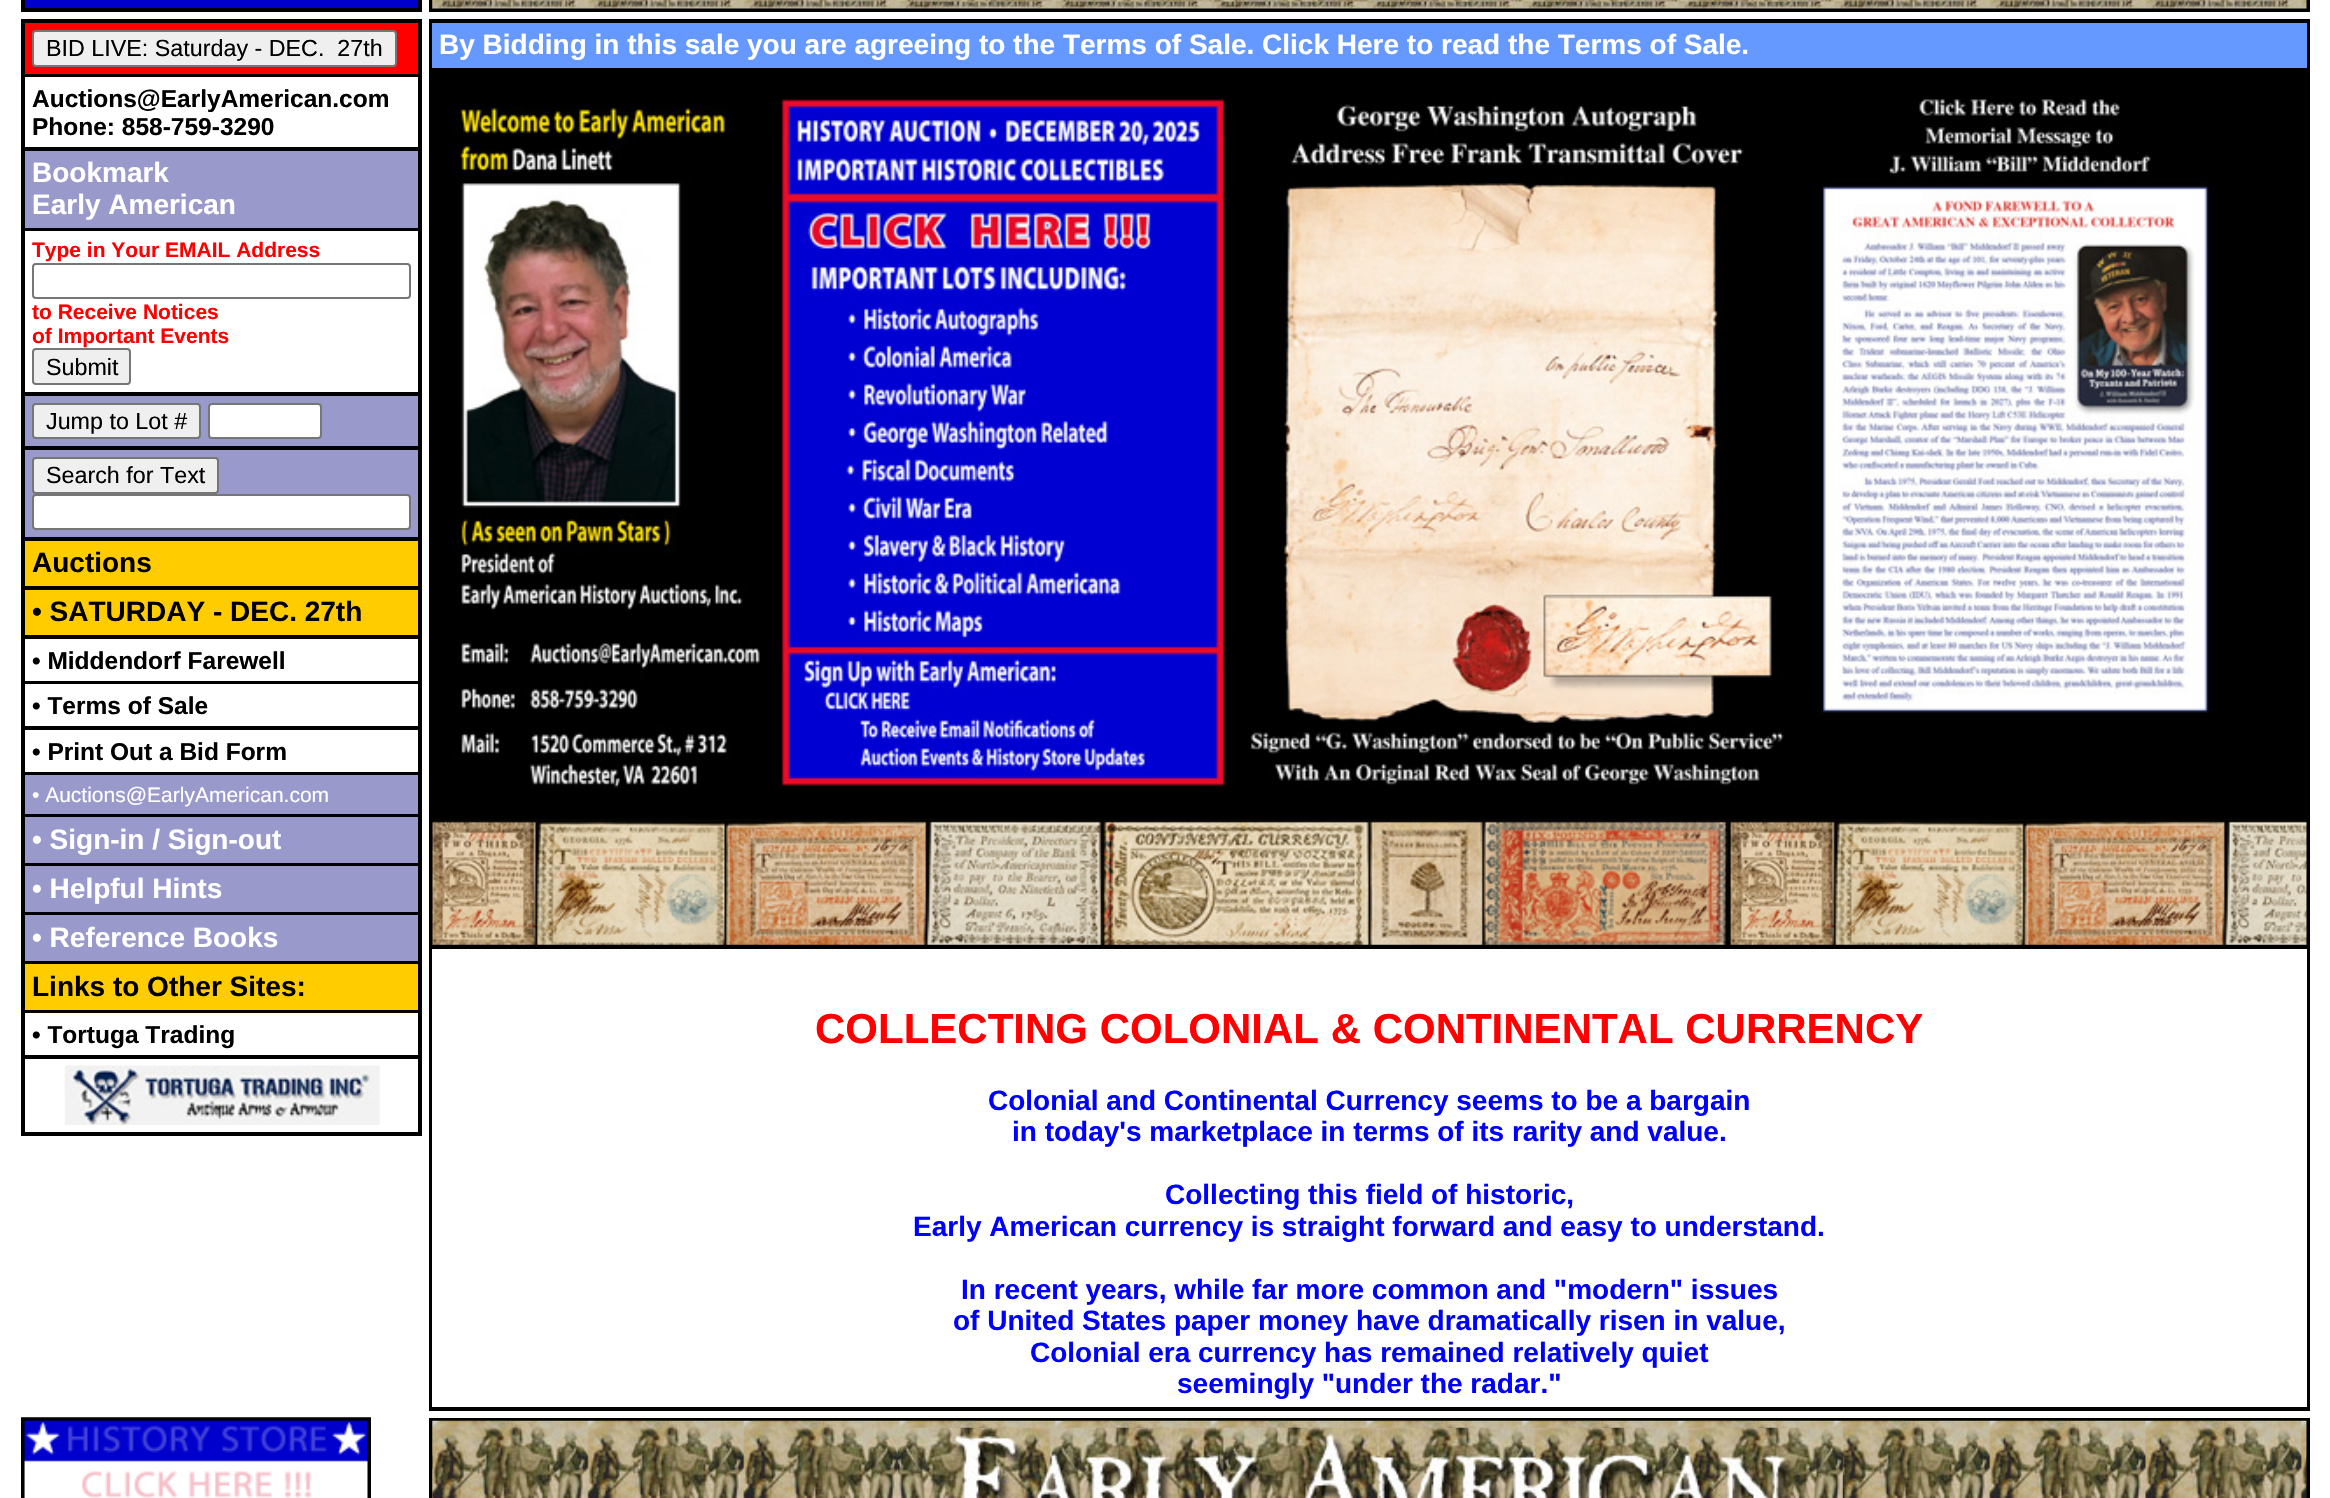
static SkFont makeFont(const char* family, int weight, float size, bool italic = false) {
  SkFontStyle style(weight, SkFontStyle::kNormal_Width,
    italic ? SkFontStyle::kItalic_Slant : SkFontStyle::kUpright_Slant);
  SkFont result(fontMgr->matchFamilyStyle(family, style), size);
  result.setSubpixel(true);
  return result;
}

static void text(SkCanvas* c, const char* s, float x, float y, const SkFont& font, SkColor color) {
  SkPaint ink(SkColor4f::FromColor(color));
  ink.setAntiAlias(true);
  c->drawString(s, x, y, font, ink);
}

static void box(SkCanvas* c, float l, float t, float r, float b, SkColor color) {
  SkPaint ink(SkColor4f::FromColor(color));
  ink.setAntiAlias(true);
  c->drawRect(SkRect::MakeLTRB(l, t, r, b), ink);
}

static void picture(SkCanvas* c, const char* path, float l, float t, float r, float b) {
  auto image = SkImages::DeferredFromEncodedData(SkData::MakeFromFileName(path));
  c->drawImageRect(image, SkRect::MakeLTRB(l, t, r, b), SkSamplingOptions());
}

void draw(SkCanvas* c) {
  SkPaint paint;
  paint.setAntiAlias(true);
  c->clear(0xffffffff);
  paint.setColor(0xff0000cc);
  c->drawRect(SkRect::MakeLTRB(23, -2, 420, 10), paint);
  paint.setStyle(SkPaint::kStroke_Style);
  paint.setStrokeWidth(4);
  paint.setColor(0xff000000);
  c->drawRect(SkRect::MakeLTRB(23, -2, 420, 10), paint);
  box(c, 429, 0, 2310, 12, 0xff000000);
  picture(c, "img_01.png", 432, 0, 2307, 9);
  picture(c, "img_02.png", 899, 0, 1843, 2);
  box(c, 21, 19, 422, 1136, 0xff000000);
  box(c, 25, 23, 418, 74, 0xffff0000);
  paint.setStyle(SkPaint::kFill_Style);
  paint.setColor(0xffefefef);
  c->drawRoundRect(SkRect::MakeLTRB(33, 31, 396, 66), 3, 3, paint);
  paint.setStyle(SkPaint::kStroke_Style);
  paint.setStrokeWidth(2);
  paint.setColor(0xff767676);
  c->drawRoundRect(SkRect::MakeLTRB(33, 31, 396, 66), 3, 3, paint);
  SkFont face1 = makeFont("Liberation Sans", 400, 23.3f);
  text(c, "BID LIVE: Saturday - DEC.  27th", 46, 56, face1, 0xff000000);
  box(c, 25, 77, 418, 147, 0xffffffff);
  SkFont face2 = makeFont("Liberation Sans", 700, 24.5f);
  text(c, "Auctions@EarlyAmerican.com", 32, 107, face2, 0xff000000);
  text(c, "Phone: 858-759-3290", 32, 135, face2, 0xff000000);
  box(c, 25, 151, 418, 228, 0xff9999cc);
  SkFont face3 = makeFont("Liberation Sans", 700, 28);
  text(c, "Bookmark", 32, 182, face3, 0xffffffff);
  text(c, "Early American", 32, 214, face3, 0xffffffff);
  box(c, 25, 231, 418, 392, 0xffffffff);
  SkFont face4 = makeFont("Liberation Sans", 700, 21);
  text(c, "Type in Your EMAIL Address", 32, 257, face4, 0xffff0000);
  c->drawRoundRect(SkRect::MakeLTRB(33, 264, 410, 298), 3, 3, paint);
  text(c, "to Receive Notices", 32, 319, face4, 0xffff0000);
  text(c, "of Important Events", 32, 343, face4, 0xffff0000);
  paint.setStyle(SkPaint::kFill_Style);
  paint.setColor(0xffefefef);
  c->drawRoundRect(SkRect::MakeLTRB(33, 349, 130, 384), 3, 3, paint);
  paint.setStyle(SkPaint::kStroke_Style);
  paint.setColor(0xff767676);
  c->drawRoundRect(SkRect::MakeLTRB(33, 349, 130, 384), 3, 3, paint);
  text(c, "Submit", 46, 375, face1, 0xff000000);
  box(c, 25, 396, 418, 446, 0xff9999cc);
  paint.setStyle(SkPaint::kFill_Style);
  paint.setColor(0xffefefef);
  c->drawRoundRect(SkRect::MakeLTRB(33, 404, 200, 438), 3, 3, paint);
  paint.setStyle(SkPaint::kStroke_Style);
  paint.setColor(0xff767676);
  c->drawRoundRect(SkRect::MakeLTRB(33, 404, 200, 438), 3, 3, paint);
  text(c, "Jump to Lot #", 46, 429, face1, 0xff000000);
  paint.setStyle(SkPaint::kFill_Style);
  paint.setColor(0xffffffff);
  c->drawRoundRect(SkRect::MakeLTRB(209, 404, 321, 438), 3, 3, paint);
  paint.setStyle(SkPaint::kStroke_Style);
  paint.setColor(0xff767676);
  c->drawRoundRect(SkRect::MakeLTRB(209, 404, 321, 438), 3, 3, paint);
  box(c, 25, 450, 418, 537, 0xff9999cc);
  paint.setStyle(SkPaint::kFill_Style);
  paint.setColor(0xffefefef);
  c->drawRoundRect(SkRect::MakeLTRB(33, 458, 218, 493), 3, 3, paint);
  paint.setStyle(SkPaint::kStroke_Style);
  paint.setColor(0xff767676);
  c->drawRoundRect(SkRect::MakeLTRB(33, 458, 218, 493), 3, 3, paint);
  text(c, "Search for Text", 46, 483, face1, 0xff000000);
  paint.setStyle(SkPaint::kFill_Style);
  paint.setColor(0xffffffff);
  c->drawRoundRect(SkRect::MakeLTRB(33, 495, 410, 529), 3, 3, paint);
  paint.setStyle(SkPaint::kStroke_Style);
  paint.setColor(0xff767676);
  c->drawRoundRect(SkRect::MakeLTRB(33, 495, 410, 529), 3, 3, paint);
  box(c, 25, 541, 418, 586, 0xffffcc00);
  text(c, "Auctions", 32, 572, face3, 0xff000000);
  box(c, 25, 590, 418, 635, 0xffffcc00);
  text(c, "• SATURDAY - DEC. 27th", 32, 621, face3, 0xff000000);
  box(c, 25, 639, 418, 681, 0xffffffff);
  text(c, "• Middendorf Farewell", 32, 669, face2, 0xff000000);
  box(c, 25, 684, 418, 726, 0xffffffff);
  text(c, "• Terms of Sale", 32, 714, face2, 0xff000000);
  box(c, 25, 730, 418, 772, 0xffffffff);
  text(c, "• Print Out a Bid Form", 32, 760, face2, 0xff000000);
  box(c, 25, 775, 418, 814, 0xff9999cc);
  SkFont face5 = makeFont("Liberation Sans", 400, 21);
  text(c, "• Auctions@EarlyAmerican.com", 32, 802, face5, 0xffffffff);
  box(c, 25, 817, 418, 863, 0xff9999cc);
  text(c, "• Sign-in / Sign-out", 32, 849, face3, 0xffffffff);
  box(c, 25, 866, 418, 912, 0xff9999cc);
  text(c, "• Helpful Hints", 32, 898, face3, 0xffffffff);
  box(c, 25, 915, 418, 961, 0xff9999cc);
  text(c, "• Reference Books", 32, 947, face3, 0xffffffff);
  box(c, 25, 964, 418, 1010, 0xffffcc00);
  text(c, "Links to Other Sites:", 32, 996, face3, 0xff000000);
  box(c, 25, 1013, 418, 1055, 0xffffffff);
  text(c, "• Tortuga Trading", 32, 1043, face2, 0xff000000);
  box(c, 25, 1059, 418, 1132, 0xffffffff);
  picture(c, "img_03.png", 64, 1065, 380, 1125);
  box(c, 429, 19, 2310, 1411, 0xff000000);
  box(c, 432, 23, 2307, 68, 0xff6699ff);
  text(c, "By Bidding in this sale you are agreeing to the Terms of Sale. Click Here to read the Terms of Sale.", 439, 54, face3, 0xffffffff);
  picture(c, "img_04.png", 453, 95, 2217, 789);
  picture(c, "img_05.png", 432, 819, 2307, 945);
  box(c, 432, 949, 2307, 1407, 0xffffffff);
  SkFont face6 = makeFont("Liberation Sans", 700, 42);
  text(c, "COLLECTING COLONIAL & CONTINENTAL CURRENCY", 815, 1043, face6, 0xffff0000);
  text(c, "Colonial and Continental Currency seems to be a bargain", 988, 1110, face3, 0xff0000ff);
  text(c, "in today's marketplace in terms of its rarity and value.", 1012, 1141, face3, 0xff0000ff);
  text(c, "Collecting this field of historic,", 1165, 1204, face3, 0xff0000ff);
  text(c, "Early American currency is straight forward and easy to understand.", 913, 1236, face3, 0xff0000ff);
  text(c, "In recent years, while far more common and \"modern\" issues", 961, 1299, face3, 0xff0000ff);
  text(c, "of United States paper money have dramatically risen in value,", 953, 1330, face3, 0xff0000ff);
  text(c, "Colonial era currency has remained relatively quiet", 1030, 1362, face3, 0xff0000ff);
  text(c, "seemingly \"under the radar.\"", 1177, 1393, face3, 0xff0000ff);
  picture(c, "img_06.png", 21, 1417, 371, 1498);
  box(c, 429, 1418, 2310, 1498, 0xff000000);
  picture(c, "img_07.png", 432, 1420, 2307, 1498);
  picture(c, "img_08.png", 897, 1427, 1843, 1498);
}
